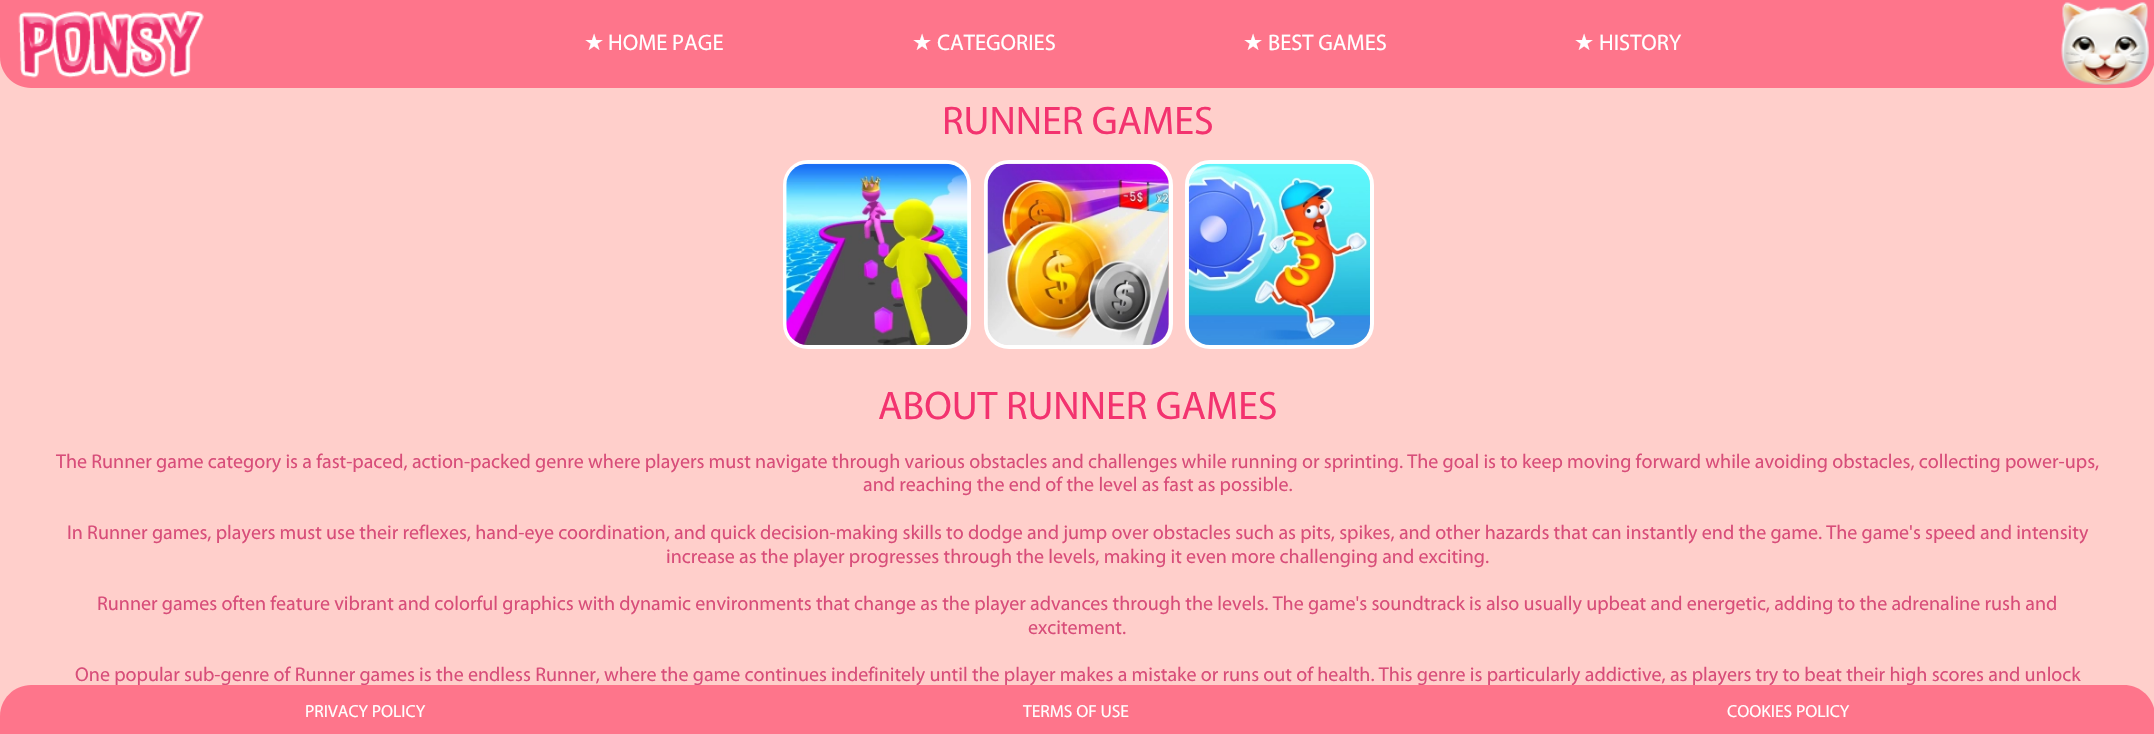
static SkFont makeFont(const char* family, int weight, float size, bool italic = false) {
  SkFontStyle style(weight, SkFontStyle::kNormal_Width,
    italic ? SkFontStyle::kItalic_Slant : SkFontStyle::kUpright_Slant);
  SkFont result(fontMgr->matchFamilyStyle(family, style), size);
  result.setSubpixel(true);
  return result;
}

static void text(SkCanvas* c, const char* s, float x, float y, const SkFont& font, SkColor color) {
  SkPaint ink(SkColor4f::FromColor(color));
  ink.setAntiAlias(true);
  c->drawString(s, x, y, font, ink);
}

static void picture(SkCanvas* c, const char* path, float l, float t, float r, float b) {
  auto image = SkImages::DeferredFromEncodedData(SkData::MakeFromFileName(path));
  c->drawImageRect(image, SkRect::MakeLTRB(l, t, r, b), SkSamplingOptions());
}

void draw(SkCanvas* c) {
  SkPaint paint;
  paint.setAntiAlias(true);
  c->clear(0xffffcfcb);
  paint.setColor(0xfffe758b);
  c->drawPath(SkPathBuilder().moveTo(0, 0).lineTo(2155, 0).lineTo(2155, 57).cubicTo(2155, 74, 2141, 88, 2124, 88).lineTo(31, 88).cubicTo(14, 88, 0, 74, 0, 57).close().detach(), paint);
  picture(c, "img_01.png", 18, 11, 204, 78);
  SkFont face1 = makeFont("DejaVu Sans", 400, 22.5f);
  text(c, "★", 584, 50, face1, 0xffffffff);
  SkFont face2 = makeFont("Myriad", 400, 22.5f);
  text(c, "HOME PAGE", 608, 50, face2, 0xffffffff);
  text(c, "★", 912, 50, face1, 0xffffffff);
  text(c, "CATEGORIES", 937, 50, face2, 0xffffffff);
  text(c, "★", 1243, 50, face1, 0xffffffff);
  text(c, "BEST GAMES", 1268, 50, face2, 0xffffffff);
  text(c, "★", 1574, 50, face1, 0xffffffff);
  text(c, "HISTORY", 1599, 50, face2, 0xffffffff);
  picture(c, "img_02.png", 2061, 2, 2149, 85);
  SkFont face3 = makeFont("Myriad", 400, 40);
  text(c, "RUNNER GAMES", 942, 134, face3, 0xfff3336f);
  paint.setStyle(SkPaint::kStroke_Style);
  paint.setStrokeWidth(4);
  paint.setColor(0xffffffff);
  c->drawRoundRect(SkRect::MakeLTRB(785, 162, 969, 347), 23, 23, paint);
  picture(c, "img_03.png", 786, 163, 968, 345);
  c->drawRoundRect(SkRect::MakeLTRB(986, 162, 1171, 347), 23, 23, paint);
  picture(c, "img_04.png", 987, 163, 1169, 345);
  c->drawRoundRect(SkRect::MakeLTRB(1187, 162, 1372, 347), 23, 23, paint);
  picture(c, "img_05.png", 1188, 163, 1370, 345);
  text(c, "ABOUT RUNNER GAMES", 878, 419, face3, 0xfff3336f);
  SkFont face4 = makeFont("Myriad", 400, 20);
  text(c, "The Runner game category is a fast-paced, action-packed genre where players must navigate through various obstacles and challenges while running or sprinting. The goal is to keep moving forward while avoiding obstacles, collecting power-ups,", 56, 468, face4, 0xffd84d79);
  text(c, "and reaching the end of the level as fast as possible.", 863, 491, face4, 0xffd84d79);
  text(c, "In Runner games, players must use their reflexes, hand-eye coordination, and quick decision-making skills to dodge and jump over obstacles such as pits, spikes, and other hazards that can instantly end the game. The game's speed and intensity", 67, 539, face4, 0xffd84d79);
  text(c, "increase as the player progresses through the levels, making it even more challenging and exciting.", 666, 563, face4, 0xffd84d79);
  text(c, "Runner games often feature vibrant and colorful graphics with dynamic environments that change as the player advances through the levels. The game's soundtrack is also usually upbeat and energetic, adding to the adrenaline rush and", 97, 610, face4, 0xffd84d79);
  text(c, "excitement.", 1028, 634, face4, 0xffd84d79);
  text(c, "One popular sub-genre of Runner games is the endless Runner, where the game continues indefinitely until the player makes a mistake or runs out of health. This genre is particularly addictive, as players try to beat their high scores and unlock", 75, 681, face4, 0xffd84d79);
  paint.setStyle(SkPaint::kFill_Style);
  paint.setColor(0xfffe758b);
  c->drawPath(SkPathBuilder().moveTo(31, 685).lineTo(2124, 685).cubicTo(2141, 685, 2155, 699, 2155, 716).lineTo(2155, 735).lineTo(0, 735).lineTo(0, 716).cubicTo(0, 699, 14, 685, 31, 685).close().detach(), paint);
  SkFont face5 = makeFont("Myriad", 400, 17.5f);
  text(c, "PRIVACY POLICY", 305, 717, face5, 0xffffffff);
  text(c, "TERMS OF USE", 1023, 717, face5, 0xffffffff);
  text(c, "COOKIES POLICY", 1727, 717, face5, 0xffffffff);
}
